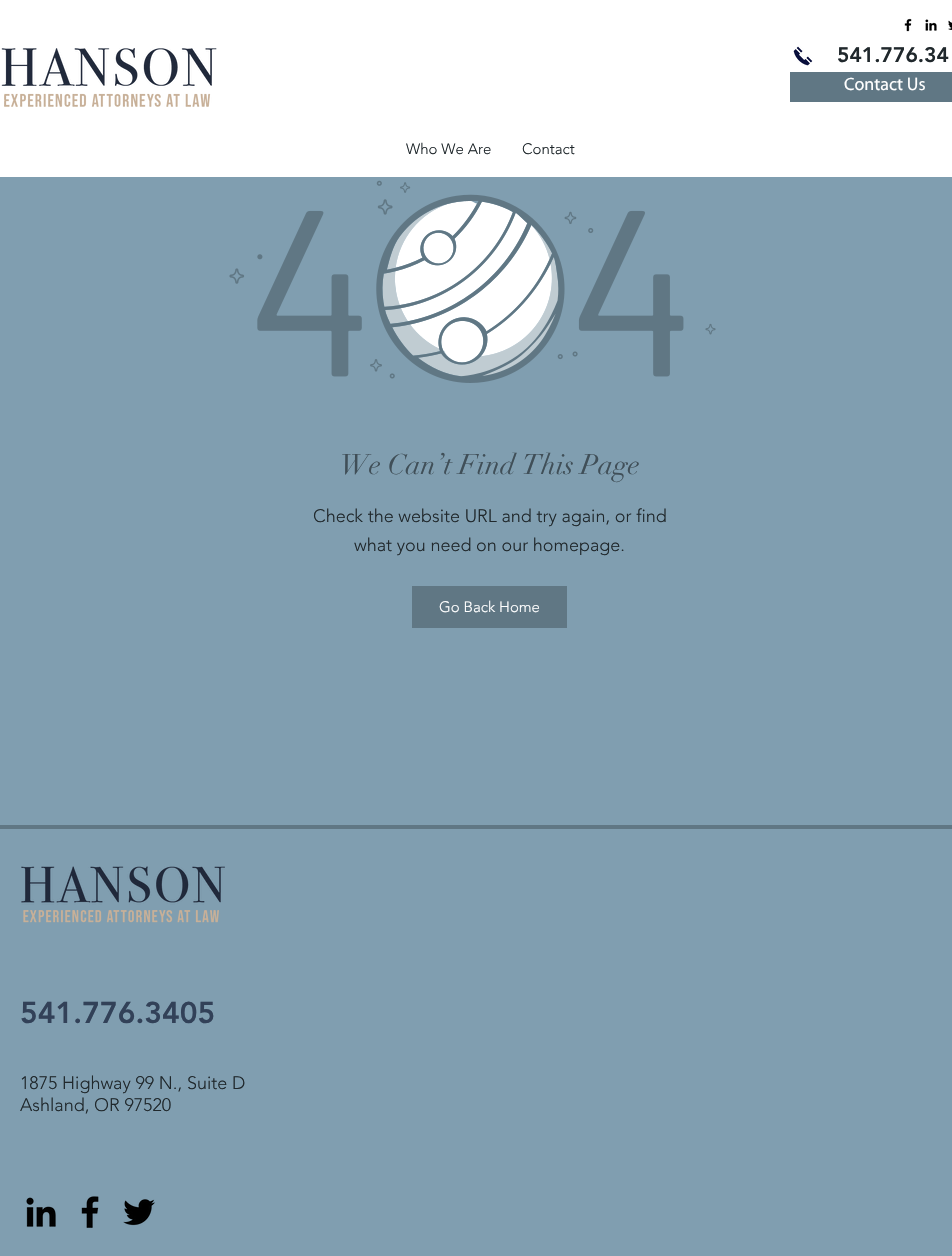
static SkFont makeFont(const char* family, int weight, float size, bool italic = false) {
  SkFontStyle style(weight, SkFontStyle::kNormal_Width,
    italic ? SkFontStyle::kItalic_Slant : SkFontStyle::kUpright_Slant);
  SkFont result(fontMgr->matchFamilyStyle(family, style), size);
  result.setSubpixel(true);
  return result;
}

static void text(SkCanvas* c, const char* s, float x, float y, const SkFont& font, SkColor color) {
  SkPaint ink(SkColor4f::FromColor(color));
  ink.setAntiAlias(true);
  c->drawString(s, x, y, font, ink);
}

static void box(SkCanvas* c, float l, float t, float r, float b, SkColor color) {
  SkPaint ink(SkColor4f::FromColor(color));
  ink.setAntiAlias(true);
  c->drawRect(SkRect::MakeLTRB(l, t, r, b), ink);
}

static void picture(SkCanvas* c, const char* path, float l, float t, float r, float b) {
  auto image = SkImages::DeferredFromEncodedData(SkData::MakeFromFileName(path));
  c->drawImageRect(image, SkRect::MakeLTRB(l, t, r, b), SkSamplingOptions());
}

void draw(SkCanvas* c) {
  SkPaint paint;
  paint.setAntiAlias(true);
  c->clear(0xff809eb0);
  box(c, 0, 0, 952, 177, 0xffffffff);
  picture(c, "img_01.png", 904, 18, 912, 32);
  picture(c, "img_02.png", 925, 19, 937, 31);
  picture(c, "img_03.png", 948, 20, 952, 30);
  picture(c, "img_04.png", 1, 48, 217, 107);
  picture(c, "img_05.png", 793, 46, 813, 66);
  SkFont face1 = makeFont("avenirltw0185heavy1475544", 900, 21);
  text(c, "541.776.34", 837, 62, face1, 0xff20282c);
  box(c, 790, 72, 952, 102, 0xff607784);
  SkFont face2 = makeFont("Myriad", 400, 18);
  text(c, "Contact Us", 844, 90, face2, 0xffffffff);
  SkFont face3 = makeFont("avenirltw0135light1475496", 300, 15);
  text(c, "Who We Are", 406, 154, face3, 0xff20282c);
  text(c, "Contact", 522, 154, face3, 0xff20282c);
  picture(c, "img_06.png", 229, 180, 716, 383);
  SkFont face4 = makeFont("didot", 400, 28);
  text(c, "We Can’t Find This Page", 340, 474, face4, 0xff404f58);
  SkFont face5 = makeFont("avenirltw0135light1475496", 300, 18);
  text(c, "Check the website URL and try again, or find", 313, 522, face5, 0xff20282c);
  text(c, "what you need on our homepage.", 354, 551, face5, 0xff20282c);
  box(c, 412, 586, 567, 628, 0xff607784);
  text(c, "Go Back Home", 439, 612, face3, 0xffffffff);
  box(c, 0, 825, 952, 829, 0xff607784);
  picture(c, "img_07.png", 21, 866, 225, 923);
  SkFont face6 = makeFont("avenirltw0185heavy1475544", 900, 30);
  text(c, "541.776.3405", 20, 1023, face6, 0xff324158);
  text(c, "1875 Highway 99 N., Suite D", 20, 1089, face5, 0xff20282c);
  text(c, "Ashland, OR 97520", 20, 1111, face5, 0xff20282c);
  picture(c, "img_08.png", 26, 1197, 56, 1227);
  picture(c, "img_09.png", 81, 1196, 99, 1228);
  picture(c, "img_10.png", 123, 1199, 155, 1226);
}
